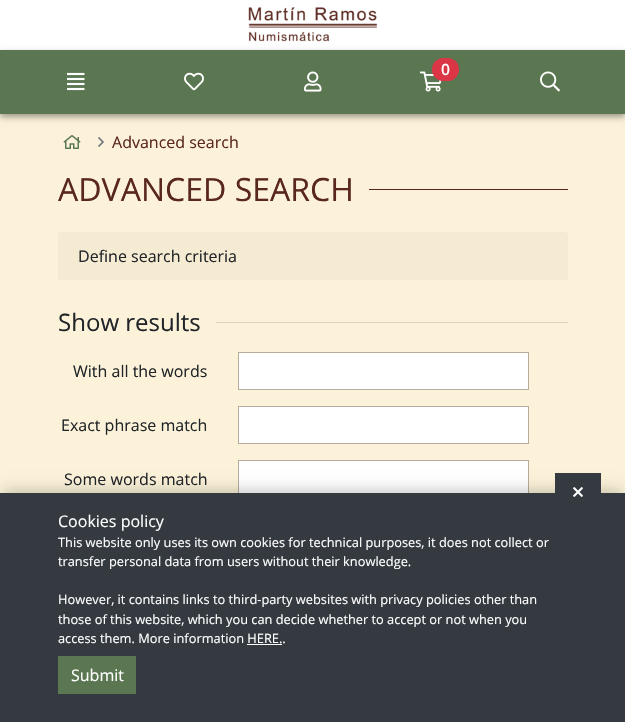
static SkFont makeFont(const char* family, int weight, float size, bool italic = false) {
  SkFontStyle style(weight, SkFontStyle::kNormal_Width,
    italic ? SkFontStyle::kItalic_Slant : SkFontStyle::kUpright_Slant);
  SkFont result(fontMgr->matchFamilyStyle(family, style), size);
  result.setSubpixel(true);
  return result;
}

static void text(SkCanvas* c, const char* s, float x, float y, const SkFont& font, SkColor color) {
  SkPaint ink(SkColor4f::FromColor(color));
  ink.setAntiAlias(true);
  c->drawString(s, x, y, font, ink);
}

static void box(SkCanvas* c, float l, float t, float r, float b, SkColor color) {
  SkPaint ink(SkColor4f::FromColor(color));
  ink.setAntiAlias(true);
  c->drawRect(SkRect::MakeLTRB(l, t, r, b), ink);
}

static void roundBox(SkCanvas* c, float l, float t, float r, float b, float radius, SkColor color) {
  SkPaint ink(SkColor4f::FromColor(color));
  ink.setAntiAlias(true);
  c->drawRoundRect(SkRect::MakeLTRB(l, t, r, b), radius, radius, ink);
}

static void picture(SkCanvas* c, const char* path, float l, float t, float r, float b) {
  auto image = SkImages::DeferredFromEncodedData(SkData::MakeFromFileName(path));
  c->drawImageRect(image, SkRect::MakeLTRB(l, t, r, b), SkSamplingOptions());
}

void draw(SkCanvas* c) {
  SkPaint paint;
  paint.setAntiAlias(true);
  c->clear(0xfffcf2d9);
  box(c, 0, 0, 625, 50, 0xffffffff);
  picture(c, "img_01.png", 248, 7, 378, 42);
  paint.setColor(0x3b000000);
  paint.setMaskFilter(SkMaskFilter::MakeBlur(kNormal_SkBlurStyle, 3));
  c->drawRect(SkRect::MakeLTRB(0, 53, 625, 117), paint);
  paint.setMaskFilter(nullptr);
  paint.setColor(0x29000000);
  paint.setMaskFilter(SkMaskFilter::MakeBlur(kNormal_SkBlurStyle, 3));
  c->drawRect(SkRect::MakeLTRB(0, 53, 625, 117), paint);
  paint.setMaskFilter(nullptr);
  box(c, 0, 50, 625, 114, 0xff5b7751);
  picture(c, "img_02.png", 67, 72, 85, 91);
  picture(c, "img_03.png", 184, 72, 204, 91);
  picture(c, "img_04.png", 304, 71, 322, 92);
  picture(c, "img_05.png", 420, 71, 442, 92);
  roundBox(c, 432, 58, 459, 81, 11.5f, 0xffdc3545);
  SkFont face1 = makeFont("Open Sans", 700, 15);
  text(c, "0", 441, 75, face1, 0xffffffff);
  picture(c, "img_06.png", 540, 71, 560, 92);
  picture(c, "img_07.png", 63, 135, 81, 149);
  picture(c, "img_08.png", 98, 137, 104, 147);
  SkFont face2 = makeFont("Open Sans", 400, 16);
  text(c, "Advanced search", 112, 148, face2, 0xff59271d);
  SkFont face3 = makeFont("Open Sans", 400, 32);
  text(c, "ADVANCED SEARCH", 58, 201, face3, 0xff59271d);
  box(c, 369, 189, 568, 190, 0xff59271d);
  paint.setColor(0xfff4ebd2);
  c->drawPath(SkPathBuilder().moveTo(61, 232).lineTo(565, 232).cubicTo(566.5f, 232, 568, 233.5f, 568, 235).lineTo(568, 280).lineTo(58, 280).lineTo(58, 235).cubicTo(58, 233.5f, 59.5f, 232, 61, 232).close().detach(), paint);
  text(c, "Define search criteria", 78, 262, face2, 0xff212529);
  SkFont face4 = makeFont("Open Sans", 400, 24);
  text(c, "Show results", 58, 331, face4, 0xff212529);
  box(c, 216, 322, 568, 323, 0xffddd4be);
  text(c, "With all the words", 73, 377, face2, 0xff212529);
  paint.setColor(0xffffffff);
  c->drawRect(SkRect::MakeLTRB(238.5f, 352.5f, 528.5f, 389.5f), paint);
  paint.setStyle(SkPaint::kStroke_Style);
  paint.setStrokeWidth(1);
  paint.setColor(0xffb5ae9c);
  c->drawRect(SkRect::MakeLTRB(238.5f, 352.5f, 528.5f, 389.5f), paint);
  text(c, "Exact phrase match", 61, 431, face2, 0xff212529);
  paint.setStyle(SkPaint::kFill_Style);
  paint.setColor(0xffffffff);
  c->drawRect(SkRect::MakeLTRB(238.5f, 406.5f, 528.5f, 443.5f), paint);
  paint.setStyle(SkPaint::kStroke_Style);
  paint.setColor(0xffb5ae9c);
  c->drawRect(SkRect::MakeLTRB(238.5f, 406.5f, 528.5f, 443.5f), paint);
  text(c, "Some words match", 64, 485, face2, 0xff212529);
  box(c, 239, 461, 528, 493, 0xffffffff);
  c->drawRect(SkRect::MakeLTRB(238.5f, 460.5f, 528.5f, 497.5f), paint);
  paint.setStyle(SkPaint::kFill_Style);
  paint.setColor(0x3b000000);
  paint.setMaskFilter(SkMaskFilter::MakeBlur(kNormal_SkBlurStyle, 7.5f));
  c->drawRect(SkRect::MakeLTRB(3, 491, 622, 714), paint);
  paint.setMaskFilter(nullptr);
  box(c, 0, 493, 625, 722, 0xff343a40);
  box(c, 555, 473, 601, 493, 0xff343a40);
  picture(c, "img_09.png", 573, 487, 583, 497);
  text(c, "Cookies policy", 58, 527, face2, 0xffffffff);
  SkFont face5 = makeFont("Open Sans", 400, 12.8f);
  text(c, "This website only uses its own cookies for technical purposes, it does not collect or", 58, 547, face5, 0xffffffff);
  text(c, "transfer personal data from users without their knowledge.", 58, 566, face5, 0xffffffff);
  text(c, "However, it contains links to third-party websites with privacy policies other than", 58, 604, face5, 0xffffffff);
  text(c, "those of this website, which you can decide whether to accept or not when you", 58, 624, face5, 0xffffffff);
  text(c, "access them. More information HERE..", 58, 643, face5, 0xffffffff);
  box(c, 247, 644, 282, 645, 0xffffffff);
  box(c, 58, 656, 136, 694, 0xff5b7751);
  text(c, "Submit", 71, 681, face2, 0xffffffff);
}
